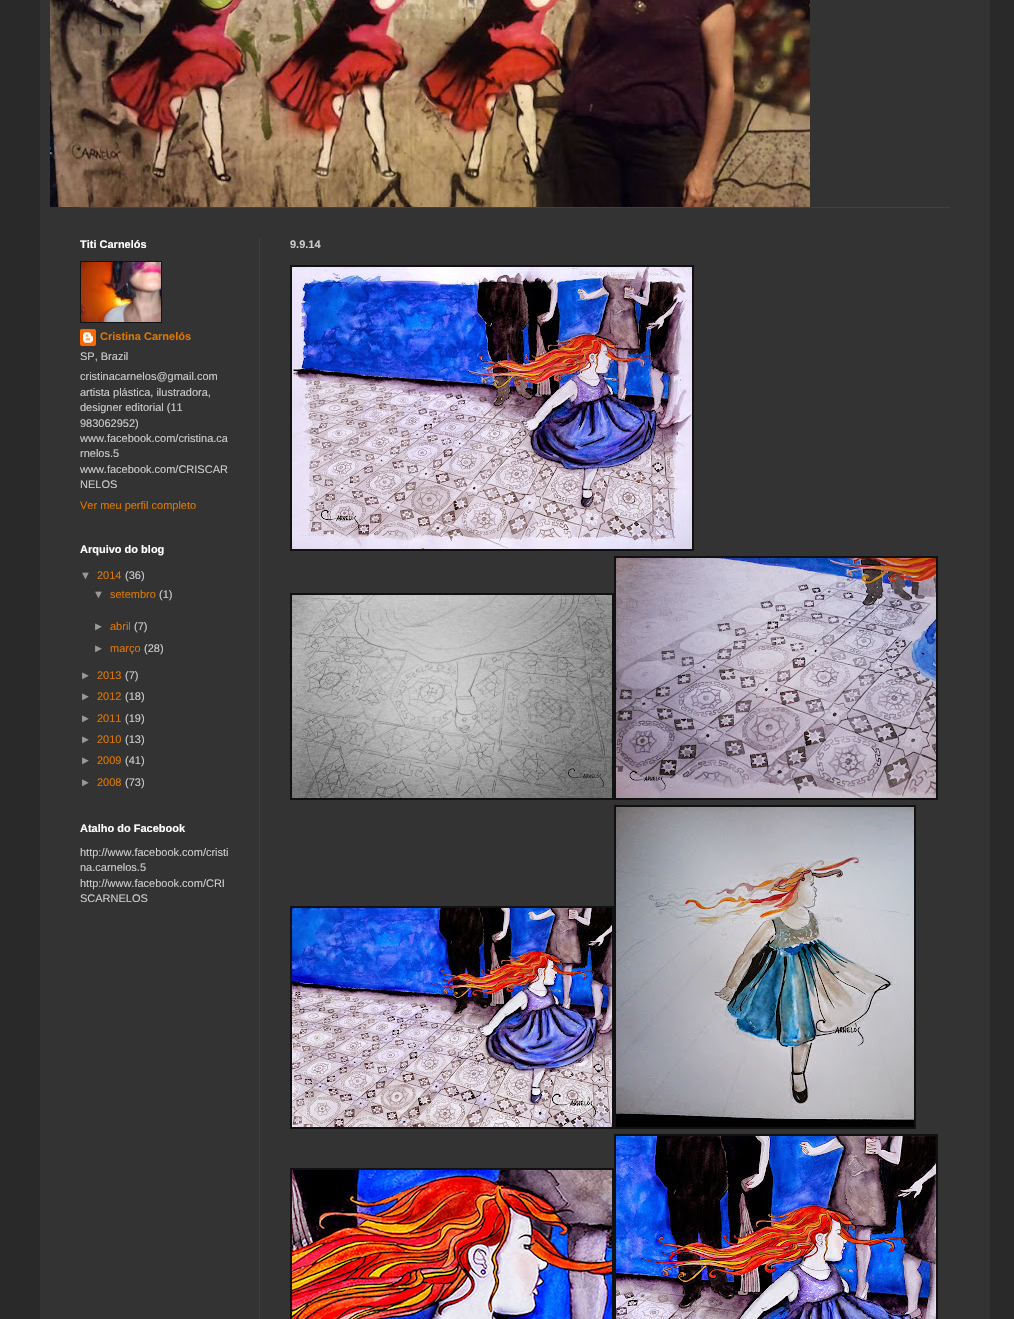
static SkFont makeFont(const char* family, int weight, float size, bool italic = false) {
  SkFontStyle style(weight, SkFontStyle::kNormal_Width,
    italic ? SkFontStyle::kItalic_Slant : SkFontStyle::kUpright_Slant);
  SkFont result(fontMgr->matchFamilyStyle(family, style), size);
  result.setSubpixel(true);
  return result;
}

static void text(SkCanvas* c, const char* s, float x, float y, const SkFont& font, SkColor color) {
  SkPaint ink(SkColor4f::FromColor(color));
  ink.setAntiAlias(true);
  c->drawString(s, x, y, font, ink);
}

static void box(SkCanvas* c, float l, float t, float r, float b, SkColor color) {
  SkPaint ink(SkColor4f::FromColor(color));
  ink.setAntiAlias(true);
  c->drawRect(SkRect::MakeLTRB(l, t, r, b), ink);
}

static void picture(SkCanvas* c, const char* path, float l, float t, float r, float b) {
  auto image = SkImages::DeferredFromEncodedData(SkData::MakeFromFileName(path));
  c->drawImageRect(image, SkRect::MakeLTRB(l, t, r, b), SkSamplingOptions());
}

void draw(SkCanvas* c) {
  SkPaint paint;
  paint.setAntiAlias(true);
  c->clear(0xff292929);
  box(c, 40, 0, 990, 1319, 0xff333333);
  picture(c, "img_01.png", 50, 0, 810, 207);
  box(c, 80, 207, 950, 208, 0xff404040);
  box(c, 259, 238, 260, 1319, 0xff404040);
  SkFont face1 = makeFont("Liberation Sans", 700, 11);
  text(c, "Titi Carnelós", 80, 248, face1, 0xffffffff);
  box(c, 80, 261, 162, 323, 0xff111111);
  picture(c, "img_02.png", 81, 262, 161, 322);
  picture(c, "img_03.png", 80, 329, 96, 346);
  text(c, "Cristina Carnelós", 100, 340, face1, 0xffdd7700);
  SkFont face2 = makeFont("Liberation Sans", 400, 11);
  text(c, "SP, Brazil", 80, 360, face2, 0xffcccccc);
  text(c, "cristinacarnelos@gmail.com", 80, 380, face2, 0xffcccccc);
  text(c, "artista plástica, ilustradora,", 80, 396, face2, 0xffcccccc);
  text(c, "designer editorial (11", 80, 411, face2, 0xffcccccc);
  text(c, "983062952)", 80, 427, face2, 0xffcccccc);
  text(c, "www.facebook.com/cristina.ca", 80, 442, face2, 0xffcccccc);
  text(c, "rnelos.5", 80, 457, face2, 0xffcccccc);
  text(c, "www.facebook.com/CRISCAR", 80, 473, face2, 0xffcccccc);
  text(c, "NELOS", 80, 488, face2, 0xffcccccc);
  text(c, "Ver meu perfil completo", 80, 509, face2, 0xffdd7700);
  text(c, "Arquivo do blog", 80, 553, face1, 0xffffffff);
  text(c, "▼", 80, 579, face2, 0xff999999);
  text(c, "2014", 97, 579, face2, 0xffdd7700);
  text(c, "(36)", 125, 579, face2, 0xffcccccc);
  text(c, "▼", 93, 598, face2, 0xff999999);
  text(c, "setembro", 110, 598, face2, 0xffdd7700);
  text(c, "(1)", 159, 598, face2, 0xffcccccc);
  text(c, "►", 93, 630, face2, 0xff999999);
  text(c, "abril", 110, 630, face2, 0xffdd7700);
  text(c, "(7)", 134, 630, face2, 0xffcccccc);
  text(c, "►", 93, 652, face2, 0xff999999);
  text(c, "março", 110, 652, face2, 0xffdd7700);
  text(c, "(28)", 144, 652, face2, 0xffcccccc);
  text(c, "►", 80, 679, face2, 0xff999999);
  text(c, "2013", 97, 679, face2, 0xffdd7700);
  text(c, "(7)", 125, 679, face2, 0xffcccccc);
  text(c, "►", 80, 700, face2, 0xff999999);
  text(c, "2012", 97, 700, face2, 0xffdd7700);
  text(c, "(18)", 125, 700, face2, 0xffcccccc);
  text(c, "►", 80, 722, face2, 0xff999999);
  text(c, "2011", 97, 722, face2, 0xffdd7700);
  text(c, "(19)", 125, 722, face2, 0xffcccccc);
  text(c, "►", 80, 743, face2, 0xff999999);
  text(c, "2010", 97, 743, face2, 0xffdd7700);
  text(c, "(13)", 125, 743, face2, 0xffcccccc);
  text(c, "►", 80, 764, face2, 0xff999999);
  text(c, "2009", 97, 764, face2, 0xffdd7700);
  text(c, "(41)", 125, 764, face2, 0xffcccccc);
  text(c, "►", 80, 786, face2, 0xff999999);
  text(c, "2008", 97, 786, face2, 0xffdd7700);
  text(c, "(73)", 125, 786, face2, 0xffcccccc);
  text(c, "Atalho do Facebook", 80, 832, face1, 0xffffffff);
  text(c, "http://www.facebook.com/cristi", 80, 856, face2, 0xffcccccc);
  text(c, "na.carnelos.5", 80, 871, face2, 0xffcccccc);
  text(c, "http://www.facebook.com/CRI", 80, 887, face2, 0xffcccccc);
  text(c, "SCARNELOS", 80, 902, face2, 0xffcccccc);
  text(c, "9.9.14", 290, 248, face1, 0xffcccccc);
  box(c, 290, 265, 694, 551, 0xff111111);
  picture(c, "img_04.png", 292, 267, 692, 549);
  box(c, 614, 556, 938, 800, 0xff111111);
  box(c, 290, 593, 614, 800, 0xff111111);
  picture(c, "img_05.png", 616, 558, 936, 798);
  picture(c, "img_06.png", 292, 595, 612, 798);
  box(c, 614, 805, 916, 1129, 0xff111111);
  box(c, 290, 906, 614, 1129, 0xff111111);
  picture(c, "img_07.png", 616, 807, 914, 1127);
  picture(c, "img_08.png", 292, 908, 612, 1127);
  box(c, 614, 1134, 938, 1319, 0xff111111);
  box(c, 290, 1168, 614, 1319, 0xff111111);
  picture(c, "img_09.png", 616, 1136, 936, 1319);
  picture(c, "img_10.png", 292, 1170, 612, 1319);
}
